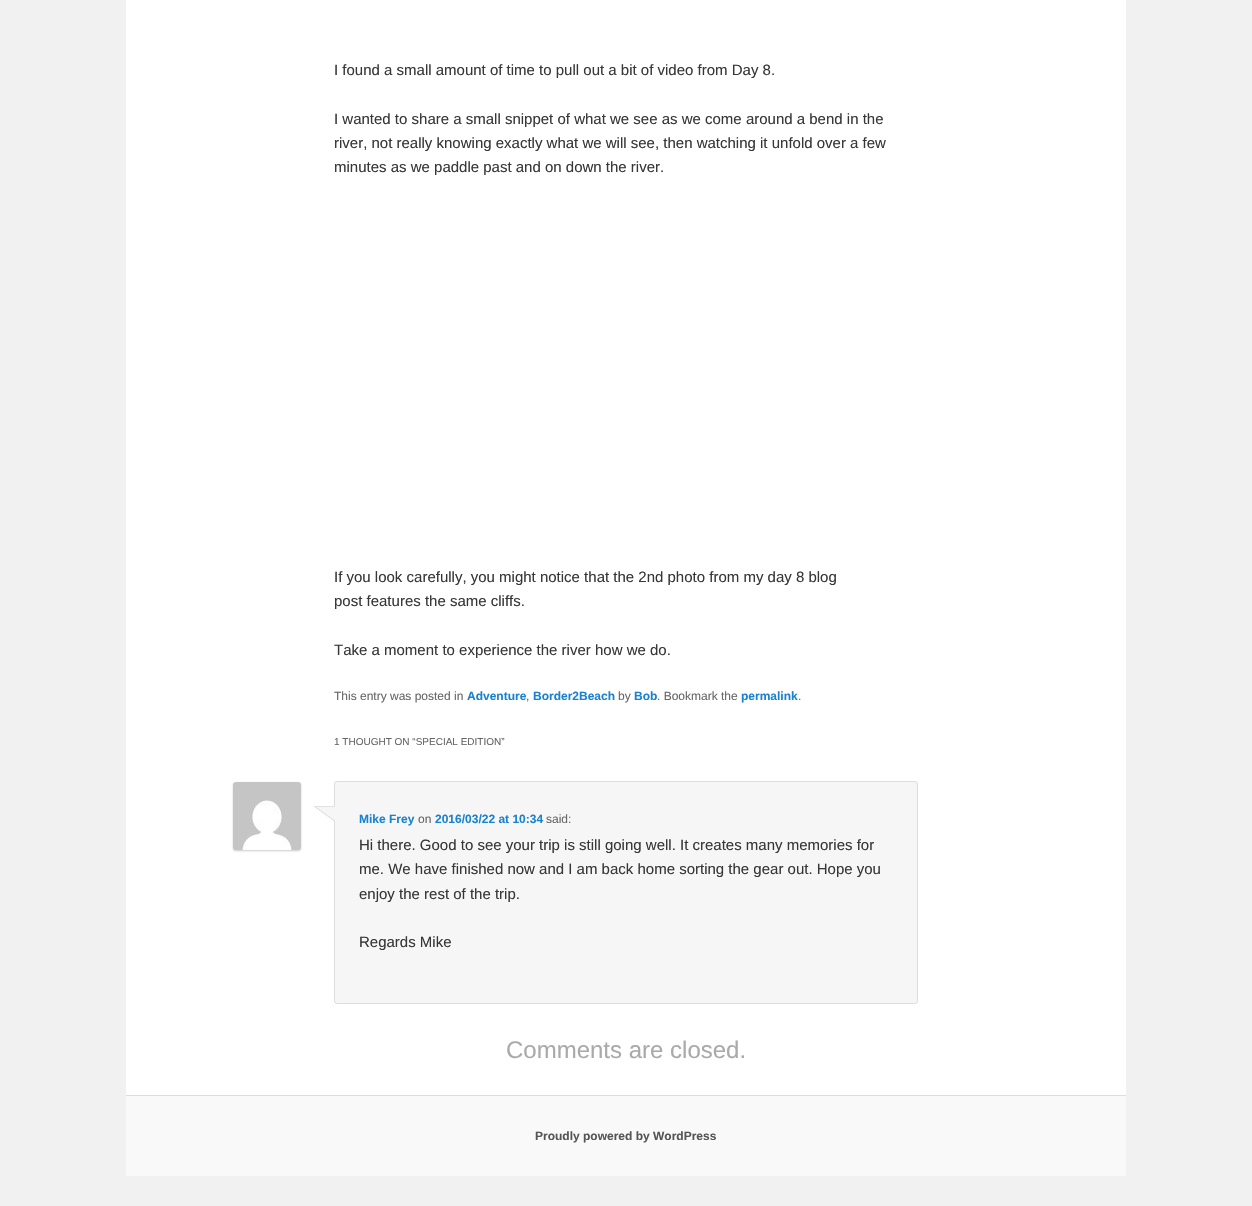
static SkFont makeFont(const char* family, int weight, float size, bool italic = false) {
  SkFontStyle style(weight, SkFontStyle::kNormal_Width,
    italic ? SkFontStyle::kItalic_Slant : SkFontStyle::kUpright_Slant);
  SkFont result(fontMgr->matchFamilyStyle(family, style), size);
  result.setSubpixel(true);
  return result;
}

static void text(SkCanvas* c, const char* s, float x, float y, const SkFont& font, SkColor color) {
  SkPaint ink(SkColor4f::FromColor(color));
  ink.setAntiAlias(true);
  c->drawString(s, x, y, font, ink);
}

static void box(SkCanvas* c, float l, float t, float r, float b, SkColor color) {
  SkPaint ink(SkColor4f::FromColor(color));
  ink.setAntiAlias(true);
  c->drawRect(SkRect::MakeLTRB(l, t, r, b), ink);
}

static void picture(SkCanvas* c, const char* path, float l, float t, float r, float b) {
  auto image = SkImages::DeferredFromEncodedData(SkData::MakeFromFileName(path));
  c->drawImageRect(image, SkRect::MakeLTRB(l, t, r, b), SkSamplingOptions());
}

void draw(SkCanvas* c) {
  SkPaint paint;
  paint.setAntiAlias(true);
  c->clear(0xfff1f1f1);
  box(c, 126, 0, 1126, 1095, 0xffffffff);
  SkFont face1 = makeFont("Liberation Sans", 400, 15);
  text(c, "I found a small amount of time to pull out a bit of video from Day 8.", 334, 75, face1, 0xff373737);
  text(c, "I wanted to share a small snippet of what we see as we come around a bend in the", 334, 124, face1, 0xff373737);
  text(c, "river, not really knowing exactly what we will see, then watching it unfold over a few", 334, 148, face1, 0xff373737);
  text(c, "minutes as we paddle past and on down the river.", 334, 172, face1, 0xff373737);
  text(c, "If you look carefully, you might notice that the 2nd photo from my day 8 blog", 334, 582, face1, 0xff373737);
  text(c, "post features the same cliffs.", 334, 606, face1, 0xff373737);
  text(c, "Take a moment to experience the river how we do.", 334, 655, face1, 0xff373737);
  SkFont face2 = makeFont("Liberation Sans", 400, 12);
  text(c, "This entry was posted in", 334, 700, face2, 0xff666666);
  SkFont face3 = makeFont("Liberation Sans", 700, 12);
  text(c, "Adventure", 467, 700, face3, 0xff1982d1);
  text(c, ",", 526, 700, face2, 0xff666666);
  text(c, "Border2Beach", 533, 700, face3, 0xff1982d1);
  text(c, "by", 618, 700, face2, 0xff666666);
  text(c, "Bob", 634, 700, face3, 0xff1982d1);
  text(c, ". Bookmark the", 657, 700, face2, 0xff666666);
  text(c, "permalink", 741, 700, face3, 0xff1982d1);
  text(c, ".", 798, 700, face2, 0xff666666);
  SkFont face4 = makeFont("Liberation Sans", 400, 10);
  text(c, "1 THOUGHT ON “SPECIAL EDITION”", 334, 745, face4, 0xff666666);
  paint.setColor(0xfff6f6f6);
  c->drawRoundRect(SkRect::MakeLTRB(334.5f, 781.5f, 917.5f, 1003.5f), 2.5f, 2.5f, paint);
  paint.setStyle(SkPaint::kStroke_Style);
  paint.setStrokeWidth(1);
  paint.setColor(0xffdddddd);
  c->drawRoundRect(SkRect::MakeLTRB(334.5f, 781.5f, 917.5f, 1003.5f), 2.5f, 2.5f, paint);
  picture(c, "img_01.png", 314, 806, 335, 821);
  paint.setStyle(SkPaint::kFill_Style);
  paint.setColor(0xffcccccc);
  paint.setMaskFilter(SkMaskFilter::MakeBlur(kNormal_SkBlurStyle, 1));
  c->drawRoundRect(SkRect::MakeLTRB(233, 783, 301, 851), 3, 3, paint);
  paint.setMaskFilter(nullptr);
  picture(c, "img_02.png", 233, 782, 301, 850);
  text(c, "Mike Frey", 359, 823, face3, 0xff1982d1);
  text(c, "on", 418, 823, face2, 0xff666666);
  text(c, "2016/03/22 at 10:34", 435, 823, face3, 0xff1982d1);
  text(c, "said:", 546, 823, face2, 0xff666666);
  text(c, "Hi there. Good to see your trip is still going well. It creates many memories for", 359, 850, face1, 0xff373737);
  text(c, "me. We have finished now and I am back home sorting the gear out. Hope you", 359, 874, face1, 0xff373737);
  text(c, "enjoy the rest of the trip.", 359, 899, face1, 0xff373737);
  text(c, "Regards Mike", 359, 947, face1, 0xff373737);
  SkFont face5 = makeFont("Liberation Sans", 400, 24);
  text(c, "Comments are closed.", 506, 1058, face5, 0xffaaaaaa);
  box(c, 126, 1096, 1126, 1176, 0xfff9f9f9);
  box(c, 126, 1095, 1126, 1096, 0xffdddddd);
  text(c, "Proudly powered by WordPress", 535, 1140, face3, 0xff555555);
}
